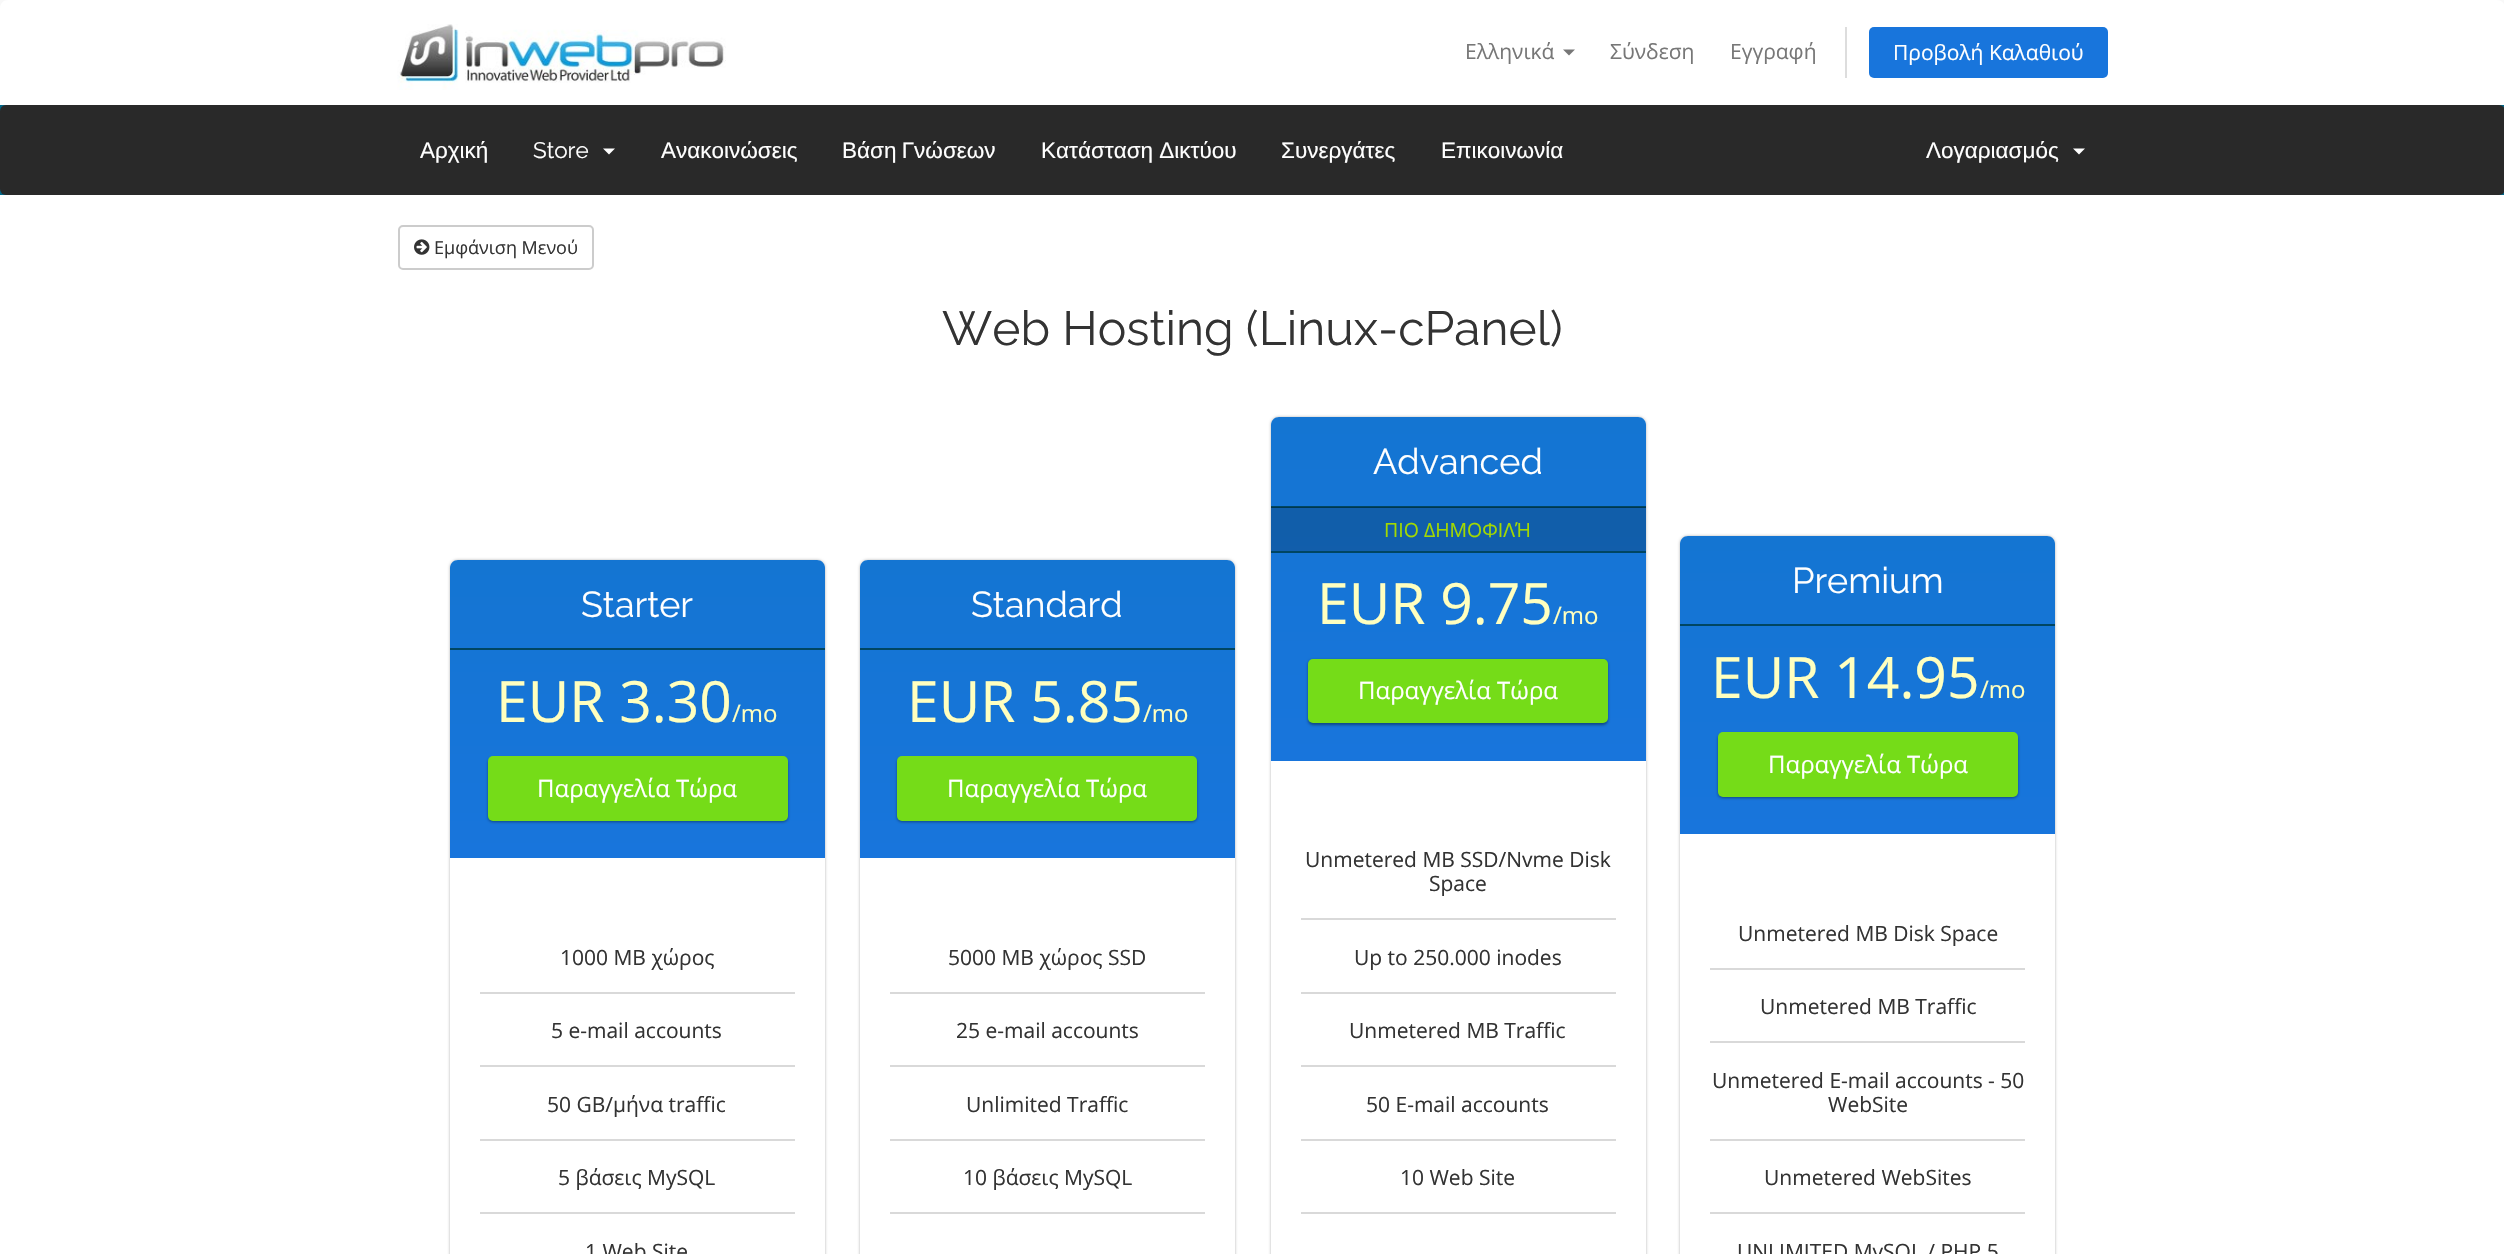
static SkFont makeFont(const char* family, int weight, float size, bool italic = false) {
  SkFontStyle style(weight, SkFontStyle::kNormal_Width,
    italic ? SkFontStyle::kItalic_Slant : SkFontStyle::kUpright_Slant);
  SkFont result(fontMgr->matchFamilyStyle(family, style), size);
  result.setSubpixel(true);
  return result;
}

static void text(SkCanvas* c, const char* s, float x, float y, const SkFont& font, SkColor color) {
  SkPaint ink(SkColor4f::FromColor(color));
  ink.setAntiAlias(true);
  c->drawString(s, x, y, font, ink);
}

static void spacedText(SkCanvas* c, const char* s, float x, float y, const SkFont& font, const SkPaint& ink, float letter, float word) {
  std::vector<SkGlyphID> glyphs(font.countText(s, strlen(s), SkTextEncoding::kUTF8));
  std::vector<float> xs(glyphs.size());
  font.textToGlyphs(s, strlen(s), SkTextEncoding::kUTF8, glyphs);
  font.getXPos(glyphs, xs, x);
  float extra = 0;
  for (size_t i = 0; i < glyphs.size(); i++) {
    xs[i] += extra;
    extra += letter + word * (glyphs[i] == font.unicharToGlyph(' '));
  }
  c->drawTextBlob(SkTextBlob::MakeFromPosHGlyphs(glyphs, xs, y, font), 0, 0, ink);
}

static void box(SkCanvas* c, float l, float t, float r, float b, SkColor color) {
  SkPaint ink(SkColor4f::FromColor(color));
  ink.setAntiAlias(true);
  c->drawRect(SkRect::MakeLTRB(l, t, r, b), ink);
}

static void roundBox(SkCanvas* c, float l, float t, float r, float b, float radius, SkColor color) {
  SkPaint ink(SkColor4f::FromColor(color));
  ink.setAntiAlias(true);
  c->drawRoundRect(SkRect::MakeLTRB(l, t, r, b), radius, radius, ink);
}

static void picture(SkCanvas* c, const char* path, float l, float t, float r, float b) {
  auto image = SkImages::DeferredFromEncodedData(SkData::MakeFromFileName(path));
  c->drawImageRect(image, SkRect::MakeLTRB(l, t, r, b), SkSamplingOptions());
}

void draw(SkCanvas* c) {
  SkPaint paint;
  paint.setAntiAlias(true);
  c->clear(0xfff8f8f8);
  paint.setColor(0xffffffff);
  c->drawPath(SkPathBuilder().moveTo(8, 0).lineTo(2497, 0).cubicTo(2501.5f, 0, 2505, 3.5f, 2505, 8).lineTo(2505, 105).lineTo(0, 105).lineTo(0, 8).cubicTo(0, 3.5f, 3.5f, 0, 8, 0).close().detach(), paint);
  picture(c, "img_01.png", 397, 24, 726, 90);
  SkFont face1 = makeFont("Open Sans", 400, 21);
  text(c, "Ελληνικά", 1465, 59, face1, 0xff777777);
  paint.setColor(0xff777777);
  c->drawPath(SkPathBuilder().moveTo(1563, 49.5f).lineTo(1575, 49.5f).lineTo(1569, 55.5f).close().detach(), paint);
  text(c, "Σύνδεση", 1610, 59, face1, 0xff777777);
  text(c, "Εγγραφή", 1730, 59, face1, 0xff777777);
  box(c, 1845, 27, 1847, 78, 0xffdddddd);
  roundBox(c, 1869, 27, 2108, 78, 5, 0xff1875dc);
  text(c, "Προβολή Καλαθιού", 1893, 60, face1, 0xffffffff);
  box(c, 0, 105, 2504, 195, 0xff006687);
  roundBox(c, 0, 105, 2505, 195, 6, 0xff292929);
  SkFont face2 = makeFont("Liberation Sans", 400, 22.5f);
  text(c, "Αρχική", 420, 158, face2, 0xffffffff);
  SkFont face3 = makeFont("Raleway", 400, 22.5f);
  text(c, "Store", 533, 158, face3, 0xffffffff);
  paint.setColor(0xffffffff);
  c->drawPath(SkPathBuilder().moveTo(603, 148.5f).lineTo(615, 148.5f).lineTo(609, 154.5f).close().detach(), paint);
  text(c, "Ανακοινώσεις", 661, 158, face2, 0xffffffff);
  spacedText(c, "Βάση Γνώσεων", 842, 158, face2, paint, 0, -1);
  text(c, "Κατάσταση Δικτύου", 1041, 158, face2, 0xffffffff);
  text(c, "Συνεργάτες", 1281, 158, face2, 0xffffffff);
  text(c, "Επικοινωνία", 1441, 158, face2, 0xffffffff);
  text(c, "Λογαριασμός", 1926, 158, face2, 0xffffffff);
  c->drawPath(SkPathBuilder().moveTo(2073, 148.5f).lineTo(2085, 148.5f).lineTo(2079, 154.5f).close().detach(), paint);
  box(c, 0, 195, 2504, 1254, 0xffffffff);
  paint.setStyle(SkPaint::kStroke_Style);
  paint.setStrokeWidth(2);
  paint.setColor(0xffcccccc);
  c->drawRoundRect(SkRect::MakeLTRB(399, 226, 593, 269), 4, 4, paint);
  picture(c, "img_02.png", 414, 239, 430, 255);
  SkFont face4 = makeFont("Open Sans", 400, 18);
  text(c, "Εμφάνιση Μενού", 434, 254, face4, 0xff333333);
  SkFont face5 = makeFont("Raleway", 400, 48);
  text(c, "Web Hosting (Linux-cPanel)", 942, 345, face5, 0xff333333);
  paint.setStyle(SkPaint::kFill_Style);
  paint.setColor(0x4d000000);
  paint.setMaskFilter(SkMaskFilter::MakeBlur(kNormal_SkBlurStyle, 1.5f));
  c->drawRoundRect(SkRect::MakeLTRB(450, 560, 825, 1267), 8, 8, paint);
  paint.setMaskFilter(nullptr);
  roundBox(c, 450, 560, 825, 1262, 8, 0xffffffff);
  {
    const SkColor colors[] = {0xff1475d2, 0xff1875dc};
    const float stops[] = {0, 1};
    const SkPoint ends[] = {{638, 560}, {638, 858}};
    paint.setShader(SkGradientShader::MakeLinear(ends, colors, stops, 2, SkTileMode::kClamp));
    paint.setAlpha(255);
  }
  c->drawPath(SkPathBuilder().moveTo(458, 560).lineTo(817, 560).cubicTo(821.5f, 560, 825, 563.5f, 825, 568).lineTo(825, 858).lineTo(450, 858).lineTo(450, 568).cubicTo(450, 563.5f, 453.5f, 560, 458, 560).close().detach(), paint);
  box(c, 450, 648, 825, 650, 0xff004662);
  SkFont face6 = makeFont("Raleway", 400, 36);
  text(c, "Starter", 581, 617, face6, 0xffffffff);
  SkFont face7 = makeFont("Open Sans", 400, 57);
  text(c, "EUR 3.30", 496, 722, face7, 0xffffffbf);
  SkFont face8 = makeFont("Open Sans", 400, 24);
  text(c, "/mo", 732, 722, face8, 0xffffffbf);
  paint.setShader(nullptr);
  paint.setColor(0x66000000);
  paint.setMaskFilter(SkMaskFilter::MakeBlur(kNormal_SkBlurStyle, 1.5f));
  c->drawRoundRect(SkRect::MakeLTRB(488, 758, 788, 822), 5, 5, paint);
  paint.setMaskFilter(nullptr);
  roundBox(c, 488, 756, 788, 821, 5, 0xff75dc18);
  text(c, "Παραγγελία Τώρα", 537, 797, face8, 0xffffffff);
  box(c, 480, 992, 795, 994, 0xffd9d9d9);
  text(c, "1000 MB χώρος", 560, 965, face1, 0xff333333);
  box(c, 480, 1065, 795, 1067, 0xffd9d9d9);
  text(c, "5 e-mail accounts", 551, 1038, face1, 0xff333333);
  box(c, 480, 1139, 795, 1141, 0xffd9d9d9);
  text(c, "50 GB/μήνα traffic", 547, 1112, face1, 0xff333333);
  box(c, 480, 1212, 795, 1214, 0xffd9d9d9);
  text(c, "5 βάσεις MySQL", 558, 1185, face1, 0xff333333);
  text(c, "1 Web Site", 585, 1259, face1, 0xff333333);
  paint.setColor(0x4d000000);
  paint.setMaskFilter(SkMaskFilter::MakeBlur(kNormal_SkBlurStyle, 1.5f));
  c->drawRoundRect(SkRect::MakeLTRB(860, 560, 1235, 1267), 8, 8, paint);
  paint.setMaskFilter(nullptr);
  roundBox(c, 860, 560, 1235, 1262, 8, 0xffffffff);
  {
    const SkColor colors[] = {0xff1475d2, 0xff1875dc};
    const float stops[] = {0, 1};
    const SkPoint ends[] = {{1047, 560}, {1047, 858}};
    paint.setShader(SkGradientShader::MakeLinear(ends, colors, stops, 2, SkTileMode::kClamp));
    paint.setAlpha(255);
  }
  c->drawPath(SkPathBuilder().moveTo(868, 560).lineTo(1227, 560).cubicTo(1231.5f, 560, 1235, 563.5f, 1235, 568).lineTo(1235, 858).lineTo(860, 858).lineTo(860, 568).cubicTo(860, 563.5f, 863.5f, 560, 868, 560).close().detach(), paint);
  box(c, 860, 648, 1235, 650, 0xff004662);
  text(c, "Standard", 971, 617, face6, 0xffffffff);
  text(c, "EUR 5.85", 907, 722, face7, 0xffffffbf);
  text(c, "/mo", 1143, 722, face8, 0xffffffbf);
  paint.setShader(nullptr);
  paint.setColor(0x66000000);
  paint.setMaskFilter(SkMaskFilter::MakeBlur(kNormal_SkBlurStyle, 1.5f));
  c->drawRoundRect(SkRect::MakeLTRB(897, 758, 1197, 822), 5, 5, paint);
  paint.setMaskFilter(nullptr);
  roundBox(c, 897, 756, 1197, 821, 5, 0xff75dc18);
  text(c, "Παραγγελία Τώρα", 947, 797, face8, 0xffffffff);
  box(c, 890, 992, 1205, 994, 0xffd9d9d9);
  text(c, "5000 MB χώρος SSD", 948, 965, face1, 0xff333333);
  box(c, 890, 1065, 1205, 1067, 0xffd9d9d9);
  text(c, "25 e-mail accounts", 956, 1038, face1, 0xff333333);
  box(c, 890, 1139, 1205, 1141, 0xffd9d9d9);
  text(c, "Unlimited Traffic", 966, 1112, face1, 0xff333333);
  box(c, 890, 1212, 1205, 1214, 0xffd9d9d9);
  text(c, "10 βάσεις MySQL", 963, 1185, face1, 0xff333333);
  paint.setColor(0x4d000000);
  paint.setMaskFilter(SkMaskFilter::MakeBlur(kNormal_SkBlurStyle, 1.5f));
  c->drawRoundRect(SkRect::MakeLTRB(1271, 417, 1646, 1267), 8, 8, paint);
  paint.setMaskFilter(nullptr);
  roundBox(c, 1271, 417, 1646, 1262, 8, 0xffffffff);
  {
    const SkColor colors[] = {0xff1475d2, 0xff1875dc};
    const float stops[] = {0, 1};
    const SkPoint ends[] = {{1458, 417}, {1458, 761}};
    paint.setShader(SkGradientShader::MakeLinear(ends, colors, stops, 2, SkTileMode::kClamp));
    paint.setAlpha(255);
  }
  c->drawPath(SkPathBuilder().moveTo(1279, 417).lineTo(1638, 417).cubicTo(1642.5f, 417, 1646, 420.5f, 1646, 425).lineTo(1646, 761).lineTo(1271, 761).lineTo(1271, 425).cubicTo(1271, 420.5f, 1274.5f, 417, 1279, 417).close().detach(), paint);
  box(c, 1271, 506, 1646, 508, 0xff004662);
  text(c, "Advanced", 1373, 474, face6, 0xffffffff);
  box(c, 1271, 507, 1646, 551, 0x33000000);
  box(c, 1271, 551, 1646, 553, 0xff004662);
  SkFont face9 = makeFont("Open Sans", 400, 19.5f);
  text(c, "ΠΙΟ ΔΗΜΟΦΙΛΉ", 1384, 537, face9, 0xffa3d900);
  text(c, "EUR 9.75", 1317, 624, face7, 0xffffffbf);
  text(c, "/mo", 1553, 624, face8, 0xffffffbf);
  paint.setShader(nullptr);
  paint.setColor(0x66000000);
  paint.setMaskFilter(SkMaskFilter::MakeBlur(kNormal_SkBlurStyle, 1.5f));
  c->drawRoundRect(SkRect::MakeLTRB(1308, 660, 1608, 725), 5, 5, paint);
  paint.setMaskFilter(nullptr);
  roundBox(c, 1308, 659, 1608, 723, 5, 0xff75dc18);
  text(c, "Παραγγελία Τώρα", 1358, 699, face8, 0xffffffff);
  box(c, 1301, 918, 1616, 920, 0xffd9d9d9);
  text(c, "Unmetered MB SSD/Nvme Disk", 1305, 867, face1, 0xff333333);
  text(c, "Space", 1429, 891, face1, 0xff333333);
  box(c, 1301, 992, 1616, 994, 0xffd9d9d9);
  text(c, "Up to 250.000 inodes", 1354, 965, face1, 0xff333333);
  box(c, 1301, 1065, 1616, 1067, 0xffd9d9d9);
  text(c, "Unmetered MB Traffic", 1349, 1038, face1, 0xff333333);
  box(c, 1301, 1139, 1616, 1141, 0xffd9d9d9);
  text(c, "50 E-mail accounts", 1366, 1112, face1, 0xff333333);
  box(c, 1301, 1212, 1616, 1214, 0xffd9d9d9);
  text(c, "10 Web Site", 1400, 1185, face1, 0xff333333);
  paint.setColor(0x4d000000);
  paint.setMaskFilter(SkMaskFilter::MakeBlur(kNormal_SkBlurStyle, 1.5f));
  c->drawRoundRect(SkRect::MakeLTRB(1680, 536, 2055, 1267), 8, 8, paint);
  paint.setMaskFilter(nullptr);
  roundBox(c, 1680, 536, 2055, 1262, 8, 0xffffffff);
  {
    const SkColor colors[] = {0xff1475d2, 0xff1875dc};
    const float stops[] = {0, 1};
    const SkPoint ends[] = {{1868, 536}, {1868, 834}};
    paint.setShader(SkGradientShader::MakeLinear(ends, colors, stops, 2, SkTileMode::kClamp));
    paint.setAlpha(255);
  }
  c->drawPath(SkPathBuilder().moveTo(1688, 536).lineTo(2047, 536).cubicTo(2051.5f, 536, 2055, 539.5f, 2055, 544).lineTo(2055, 834).lineTo(1680, 834).lineTo(1680, 544).cubicTo(1680, 539.5f, 1683.5f, 536, 1688, 536).close().detach(), paint);
  box(c, 1680, 624, 2055, 626, 0xff004662);
  text(c, "Premium", 1792, 593, face6, 0xffffffff);
  text(c, "EUR 14.95", 1711, 698, face7, 0xffffffbf);
  text(c, "/mo", 1980, 698, face8, 0xffffffbf);
  paint.setShader(nullptr);
  paint.setColor(0x66000000);
  paint.setMaskFilter(SkMaskFilter::MakeBlur(kNormal_SkBlurStyle, 1.5f));
  c->drawRoundRect(SkRect::MakeLTRB(1718, 734, 2018, 798), 5, 5, paint);
  paint.setMaskFilter(nullptr);
  roundBox(c, 1718, 732, 2018, 797, 5, 0xff75dc18);
  text(c, "Παραγγελία Τώρα", 1768, 773, face8, 0xffffffff);
  box(c, 1710, 968, 2025, 970, 0xffd9d9d9);
  text(c, "Unmetered MB Disk Space", 1738, 941, face1, 0xff333333);
  box(c, 1710, 1041, 2025, 1043, 0xffd9d9d9);
  text(c, "Unmetered MB Traffic", 1760, 1014, face1, 0xff333333);
  box(c, 1710, 1139, 2025, 1141, 0xffd9d9d9);
  text(c, "Unmetered E-mail accounts - 50", 1712, 1088, face1, 0xff333333);
  text(c, "WebSite", 1828, 1112, face1, 0xff333333);
  box(c, 1710, 1212, 2025, 1214, 0xffd9d9d9);
  text(c, "Unmetered WebSites", 1764, 1185, face1, 0xff333333);
  text(c, "UNLIMITED MySQL / PHP 5", 1737, 1259, face1, 0xff333333);
}
